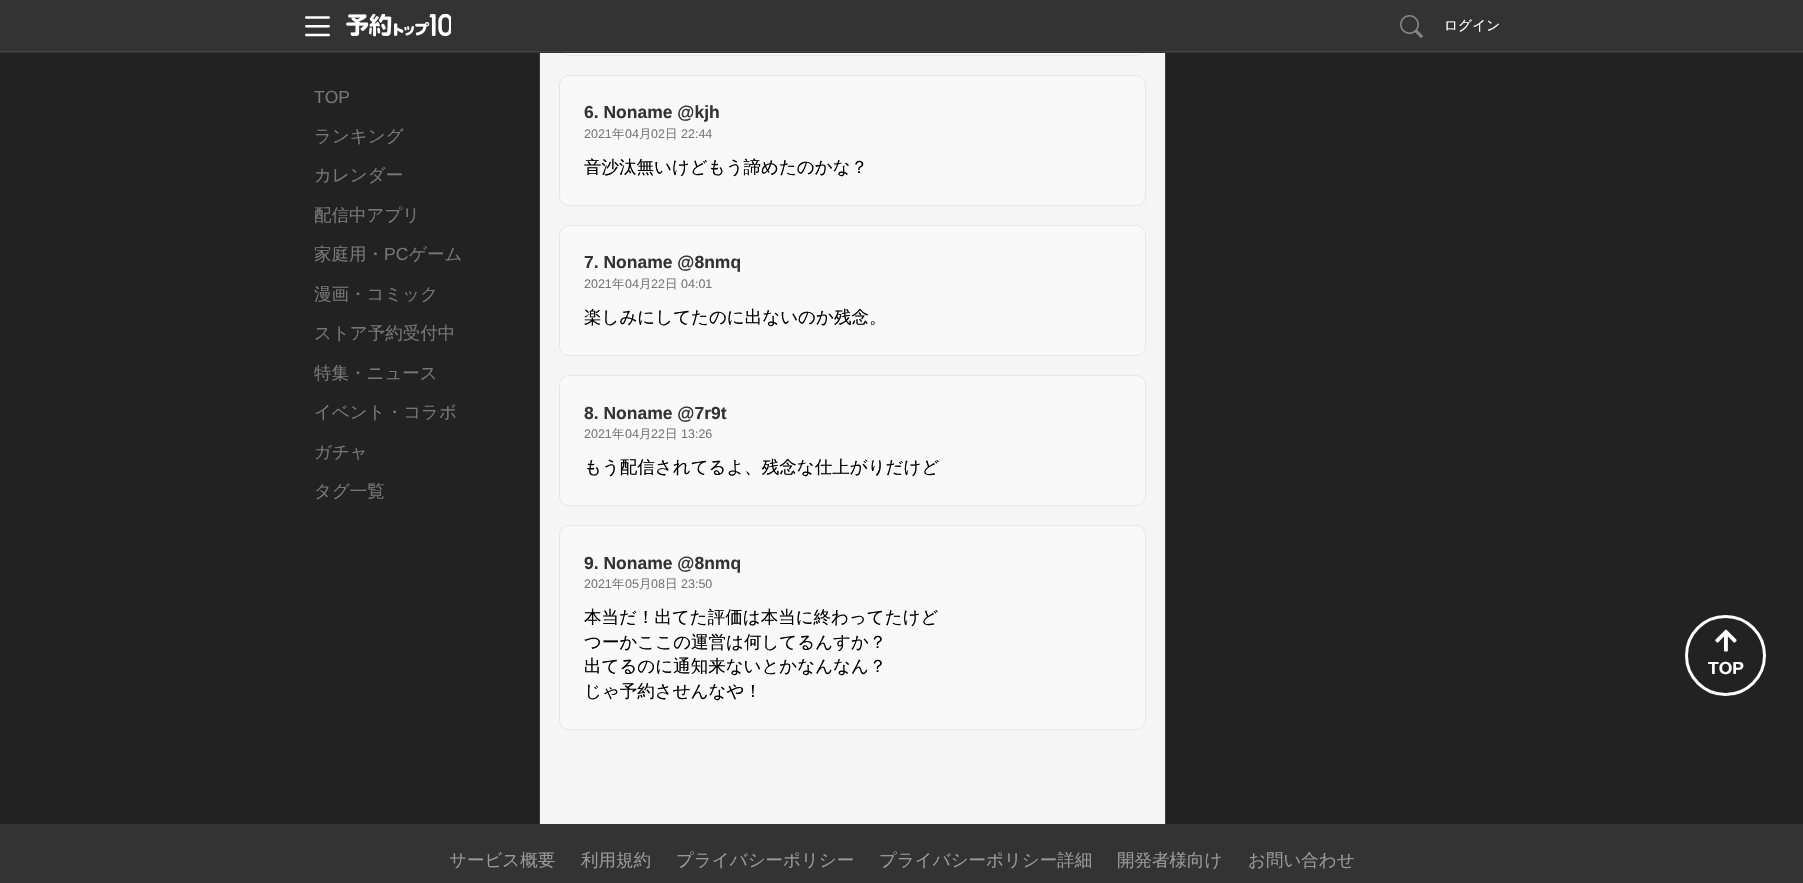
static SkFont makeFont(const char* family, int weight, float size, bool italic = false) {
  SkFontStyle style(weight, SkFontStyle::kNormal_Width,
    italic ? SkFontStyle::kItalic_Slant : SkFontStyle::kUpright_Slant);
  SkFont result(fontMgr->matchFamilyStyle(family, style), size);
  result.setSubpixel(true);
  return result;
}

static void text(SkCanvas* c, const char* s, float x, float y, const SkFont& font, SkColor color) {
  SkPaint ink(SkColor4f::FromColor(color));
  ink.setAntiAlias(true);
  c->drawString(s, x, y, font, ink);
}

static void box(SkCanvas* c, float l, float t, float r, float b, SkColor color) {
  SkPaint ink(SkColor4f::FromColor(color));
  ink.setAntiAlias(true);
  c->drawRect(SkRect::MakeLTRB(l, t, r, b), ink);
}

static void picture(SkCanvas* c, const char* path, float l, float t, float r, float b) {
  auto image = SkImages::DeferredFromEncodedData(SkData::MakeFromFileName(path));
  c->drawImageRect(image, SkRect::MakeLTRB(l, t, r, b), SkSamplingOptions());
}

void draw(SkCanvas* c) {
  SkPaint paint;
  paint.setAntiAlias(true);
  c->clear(0xff222222);
  box(c, 540, 53, 1165, 824, 0xfff5f5f5);
  paint.setColor(0xfff9f9f9);
  c->drawRoundRect(SkRect::MakeLTRB(559.5f, -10.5f, 1145.5f, 55.5f), 9.5f, 9.5f, paint);
  paint.setStyle(SkPaint::kStroke_Style);
  paint.setStrokeWidth(1);
  paint.setColor(0xffe6e6e6);
  c->drawRoundRect(SkRect::MakeLTRB(559.5f, -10.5f, 1145.5f, 55.5f), 9.5f, 9.5f, paint);
  box(c, 0, 0, 1803, 53, 0xff333333);
  box(c, 0, 51, 1803, 52, 0xff444444);
  picture(c, "img_01.png", 305, 16, 330, 37);
  picture(c, "img_02.png", 346, 14, 451, 37);
  picture(c, "img_03.png", 1400, 15, 1423, 38);
  SkFont face1 = makeFont("WenQuanYi Zen Hei", 500, 13.75f);
  text(c, "ログイン", 1444, 30, face1, 0xffffffff);
  box(c, 539, 53, 540, 824, 0xff3a3a3a);
  SkFont face2 = makeFont("Liberation Sans", 400, 17.5f);
  text(c, "TOP", 314, 103, face2, 0xff777777);
  SkFont face3 = makeFont("WenQuanYi Zen Hei", 500, 17.5f);
  text(c, "ランキング", 314, 142, face3, 0xff777777);
  text(c, "カレンダー", 314, 181, face3, 0xff777777);
  text(c, "配信中アプリ", 314, 221, face3, 0xff777777);
  text(c, "家庭用・", 314, 260, face3, 0xff777777);
  text(c, "PC", 384, 260, face2, 0xff777777);
  text(c, "ゲーム", 409, 260, face3, 0xff777777);
  text(c, "漫画・コミック", 314, 300, face3, 0xff777777);
  text(c, "ストア予約受付中", 314, 339, face3, 0xff777777);
  text(c, "特集・ニュース", 314, 379, face3, 0xff777777);
  text(c, "イベント・コラボ", 314, 418, face3, 0xff777777);
  text(c, "ガチャ", 314, 458, face3, 0xff777777);
  text(c, "タグ一覧", 314, 497, face3, 0xff777777);
  paint.setStyle(SkPaint::kFill_Style);
  paint.setColor(0xfff9f9f9);
  c->drawRoundRect(SkRect::MakeLTRB(559.5f, 75.5f, 1145.5f, 205.5f), 9.5f, 9.5f, paint);
  paint.setStyle(SkPaint::kStroke_Style);
  paint.setColor(0xffe6e6e6);
  c->drawRoundRect(SkRect::MakeLTRB(559.5f, 75.5f, 1145.5f, 205.5f), 9.5f, 9.5f, paint);
  SkFont face4 = makeFont("Liberation Sans", 700, 17.5f);
  text(c, "6. Noname @kjh", 584, 118, face4, 0xff333333);
  SkFont face5 = makeFont("Liberation Sans", 400, 12.5f);
  text(c, "2021", 584, 138, face5, 0xff777777);
  SkFont face6 = makeFont("WenQuanYi Zen Hei", 500, 12.5f);
  text(c, "年", 612, 138, face6, 0xff777777);
  text(c, "04", 625, 138, face5, 0xff777777);
  text(c, "月", 639, 138, face6, 0xff777777);
  text(c, "02", 651, 138, face5, 0xff777777);
  text(c, "日", 665, 138, face6, 0xff777777);
  text(c, "22:44", 681, 138, face5, 0xff777777);
  text(c, "音沙汰無いけどもう諦めたのかな？", 584, 173, face3, 0xff000000);
  paint.setStyle(SkPaint::kFill_Style);
  paint.setColor(0xfff9f9f9);
  c->drawRoundRect(SkRect::MakeLTRB(559.5f, 225.5f, 1145.5f, 355.5f), 9.5f, 9.5f, paint);
  paint.setStyle(SkPaint::kStroke_Style);
  paint.setColor(0xffe6e6e6);
  c->drawRoundRect(SkRect::MakeLTRB(559.5f, 225.5f, 1145.5f, 355.5f), 9.5f, 9.5f, paint);
  text(c, "7. Noname @8nmq", 584, 268, face4, 0xff333333);
  text(c, "2021", 584, 288, face5, 0xff777777);
  text(c, "年", 612, 288, face6, 0xff777777);
  text(c, "04", 625, 288, face5, 0xff777777);
  text(c, "月", 639, 288, face6, 0xff777777);
  text(c, "22", 651, 288, face5, 0xff777777);
  text(c, "日", 665, 288, face6, 0xff777777);
  text(c, "04:01", 681, 288, face5, 0xff777777);
  text(c, "楽しみにしてたのに出ないのか残念。", 584, 323, face3, 0xff000000);
  paint.setStyle(SkPaint::kFill_Style);
  paint.setColor(0xfff9f9f9);
  c->drawRoundRect(SkRect::MakeLTRB(559.5f, 375.5f, 1145.5f, 505.5f), 9.5f, 9.5f, paint);
  paint.setStyle(SkPaint::kStroke_Style);
  paint.setColor(0xffe6e6e6);
  c->drawRoundRect(SkRect::MakeLTRB(559.5f, 375.5f, 1145.5f, 505.5f), 9.5f, 9.5f, paint);
  text(c, "8. Noname @7r9t", 584, 419, face4, 0xff333333);
  text(c, "2021", 584, 438, face5, 0xff777777);
  text(c, "年", 612, 438, face6, 0xff777777);
  text(c, "04", 625, 438, face5, 0xff777777);
  text(c, "月", 639, 438, face6, 0xff777777);
  text(c, "22", 651, 438, face5, 0xff777777);
  text(c, "日", 665, 438, face6, 0xff777777);
  text(c, "13:26", 681, 438, face5, 0xff777777);
  text(c, "もう配信されてるよ、残念な仕上がりだけど", 584, 473, face3, 0xff000000);
  paint.setStyle(SkPaint::kFill_Style);
  paint.setColor(0xfff9f9f9);
  c->drawRoundRect(SkRect::MakeLTRB(559.5f, 525.5f, 1145.5f, 729.5f), 9.5f, 9.5f, paint);
  paint.setStyle(SkPaint::kStroke_Style);
  paint.setColor(0xffe6e6e6);
  c->drawRoundRect(SkRect::MakeLTRB(559.5f, 525.5f, 1145.5f, 729.5f), 9.5f, 9.5f, paint);
  text(c, "9. Noname @8nmq", 584, 569, face4, 0xff333333);
  text(c, "2021", 584, 588, face5, 0xff777777);
  text(c, "年", 612, 588, face6, 0xff777777);
  text(c, "05", 625, 588, face5, 0xff777777);
  text(c, "月", 639, 588, face6, 0xff777777);
  text(c, "08", 651, 588, face5, 0xff777777);
  text(c, "日", 665, 588, face6, 0xff777777);
  text(c, "23:50", 681, 588, face5, 0xff777777);
  text(c, "本当だ！出てた評価は本当に終わってたけど", 584, 623, face3, 0xff000000);
  text(c, "つーかここの運営は何してるんすか？", 584, 648, face3, 0xff000000);
  text(c, "出てるのに通知来ないとかなんなん？", 584, 672, face3, 0xff000000);
  text(c, "じゃ予約させんなや！", 584, 697, face3, 0xff000000);
  box(c, 1165, 53, 1166, 824, 0xff3a3a3a);
  box(c, 0, 824, 1803, 883, 0xff333333);
  paint.setStrokeWidth(3);
  paint.setColor(0xffffffff);
  c->drawCircle(1725.5f, 655.5f, 39, paint);
  picture(c, "img_04.png", 1715, 629, 1737, 652);
  text(c, "TOP", 1708, 674, face4, 0xffffffff);
  text(c, "サービス概要", 449, 866, face3, 0xff999999);
  text(c, "利用規約", 581, 866, face3, 0xff999999);
  text(c, "プライバシーポリシー", 676, 866, face3, 0xff999999);
  text(c, "プライバシーポリシー詳細", 879, 866, face3, 0xff999999);
  text(c, "開発者様向け", 1117, 866, face3, 0xff999999);
  text(c, "お問い合わせ", 1248, 866, face3, 0xff999999);
}
